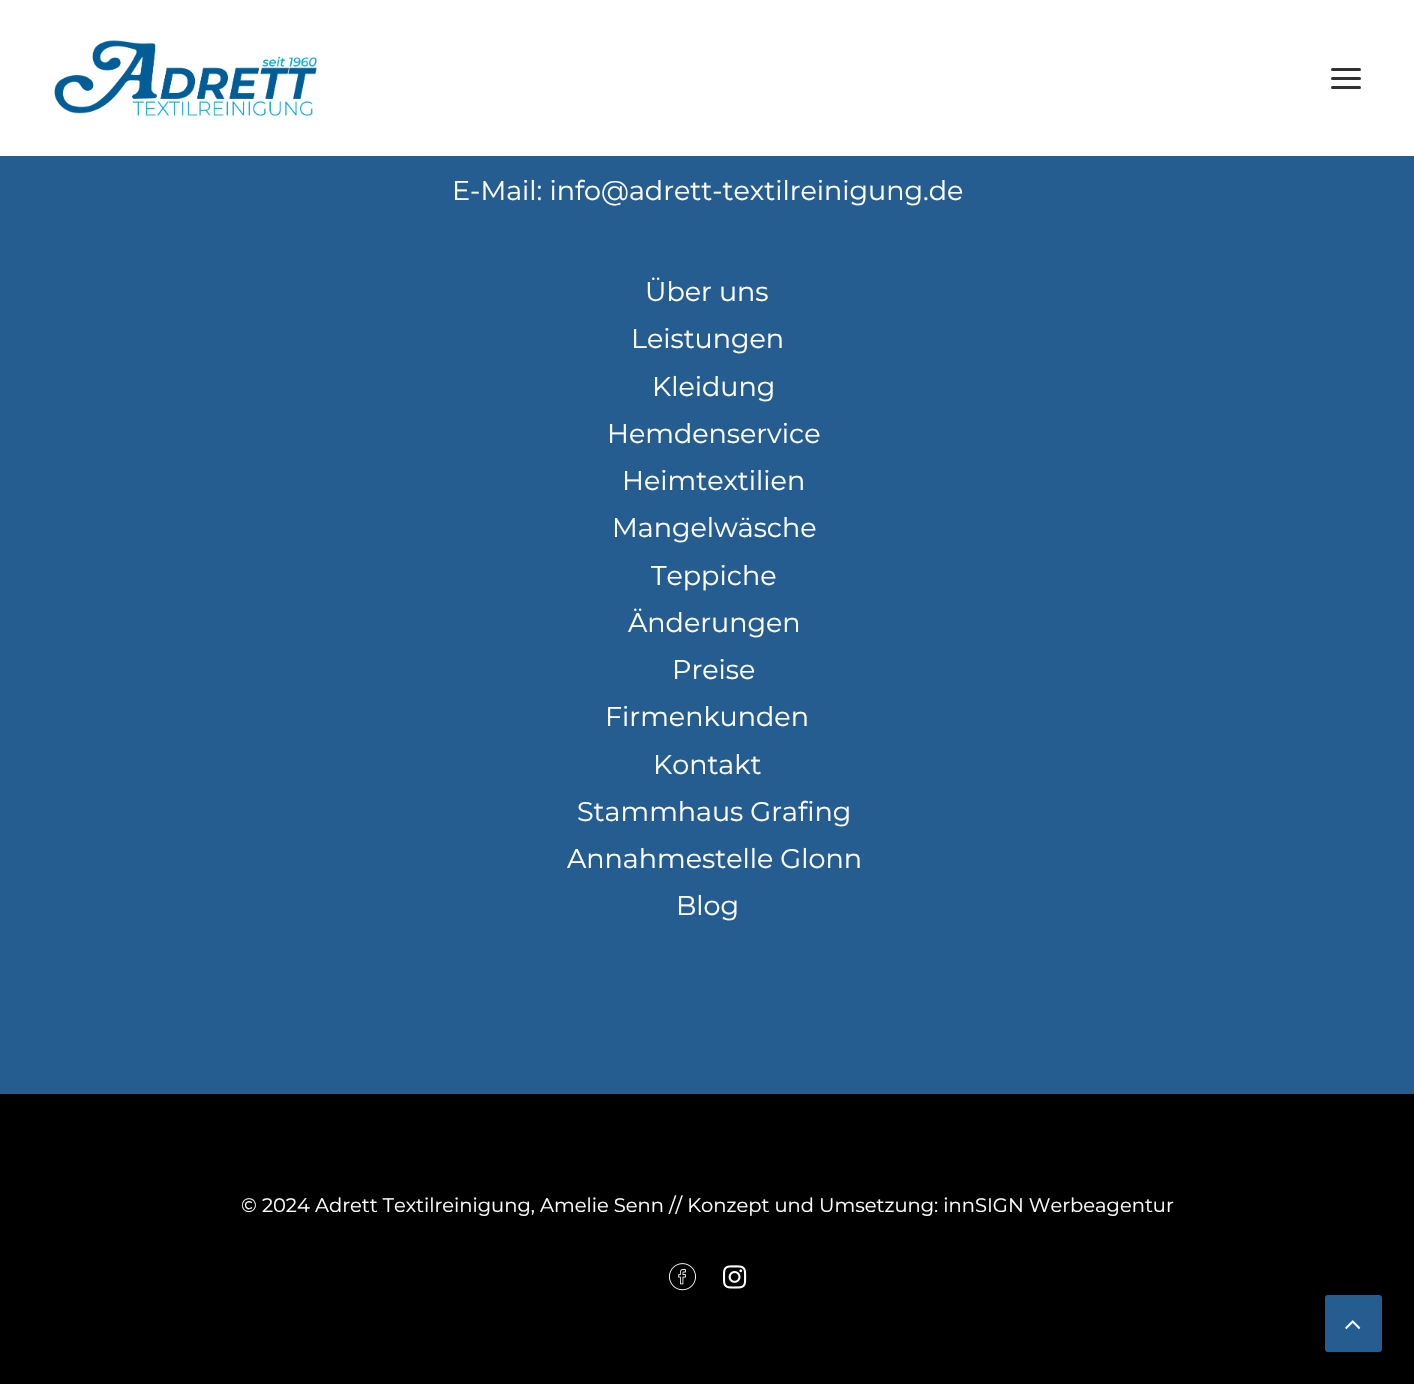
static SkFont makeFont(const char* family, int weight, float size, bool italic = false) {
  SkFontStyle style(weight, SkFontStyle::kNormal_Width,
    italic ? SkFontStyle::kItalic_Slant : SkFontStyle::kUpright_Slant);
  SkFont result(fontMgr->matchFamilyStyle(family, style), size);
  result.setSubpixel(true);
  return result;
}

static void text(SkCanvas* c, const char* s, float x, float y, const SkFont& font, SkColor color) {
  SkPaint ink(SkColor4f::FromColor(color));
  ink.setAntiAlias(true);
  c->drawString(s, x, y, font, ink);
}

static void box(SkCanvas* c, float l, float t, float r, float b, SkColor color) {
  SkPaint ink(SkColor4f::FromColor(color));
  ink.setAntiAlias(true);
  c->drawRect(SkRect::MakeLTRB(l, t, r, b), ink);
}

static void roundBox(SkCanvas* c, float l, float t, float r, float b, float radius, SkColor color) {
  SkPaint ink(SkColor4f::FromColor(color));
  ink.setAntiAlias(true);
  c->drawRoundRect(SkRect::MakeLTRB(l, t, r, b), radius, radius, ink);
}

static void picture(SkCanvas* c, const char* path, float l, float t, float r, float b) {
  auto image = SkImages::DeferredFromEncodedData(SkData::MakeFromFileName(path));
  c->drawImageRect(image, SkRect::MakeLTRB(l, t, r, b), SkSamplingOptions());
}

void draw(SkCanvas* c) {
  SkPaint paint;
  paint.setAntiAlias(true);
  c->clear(0xff255d91);
  box(c, 0, 0, 1414, 156, 0xffffffff);
  picture(c, "img_01.png", 54, 40, 317, 116);
  roundBox(c, 1331, 77, 1361, 80, 1.5f, 0xff303133);
  roundBox(c, 1331, 68, 1361, 71, 1.5f, 0xff303133);
  roundBox(c, 1331, 86, 1361, 89, 1.5f, 0xff303133);
  SkFont face1 = makeFont("Montserrat", 400, 27);
  text(c, "E-Mail: info@adrett-textilreinigung.de", 452, 200, face1, 0xffffffff);
  text(c, "Über uns", 645, 301, face1, 0xffffffff);
  text(c, "Leistungen", 631, 348, face1, 0xffffffff);
  text(c, "Kleidung", 652, 396, face1, 0xffffffff);
  text(c, "Hemdenservice", 607, 443, face1, 0xffffffff);
  text(c, "Heimtextilien", 622, 490, face1, 0xffffffff);
  text(c, "Mangelwäsche", 612, 537, face1, 0xffffffff);
  text(c, "Teppiche", 651, 585, face1, 0xffffffff);
  text(c, "Änderungen", 628, 632, face1, 0xffffffff);
  text(c, "Preise", 672, 679, face1, 0xffffffff);
  text(c, "Firmenkunden", 605, 726, face1, 0xffffffff);
  text(c, "Kontakt", 653, 774, face1, 0xffffffff);
  text(c, "Stammhaus Grafing", 577, 821, face1, 0xffffffff);
  text(c, "Annahmestelle Glonn", 567, 868, face1, 0xffffffff);
  text(c, "Blog", 676, 915, face1, 0xffffffff);
  box(c, 0, 1094, 1414, 1384, 0xff000000);
  SkFont face2 = makeFont("Montserrat", 400, 19.5f);
  text(c, "© 2024 Adrett Textilreinigung, Amelie Senn // Konzept und Umsetzung: innSIGN Werbeagentur", 241, 1212, face2, 0xffffffff);
  picture(c, "img_02.png", 668, 1263, 697, 1291);
  picture(c, "img_03.png", 723, 1265, 747, 1289);
  paint.setColor(0xff255d91);
  c->drawRoundRect(SkRect::MakeLTRB(1326, 1296, 1381, 1351), 2, 2, paint);
  paint.setStyle(SkPaint::kStroke_Style);
  paint.setStrokeWidth(2);
  c->drawRoundRect(SkRect::MakeLTRB(1326, 1296, 1381, 1351), 2, 2, paint);
  picture(c, "img_04.png", 1345, 1320, 1361, 1329);
}
